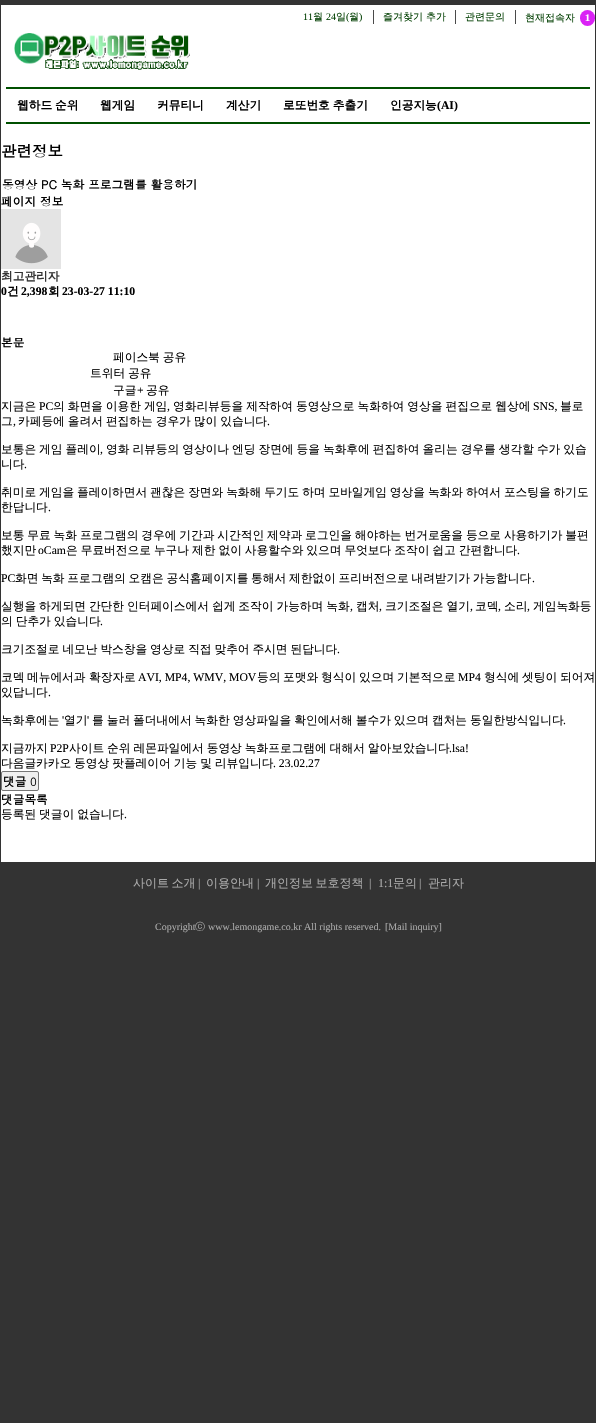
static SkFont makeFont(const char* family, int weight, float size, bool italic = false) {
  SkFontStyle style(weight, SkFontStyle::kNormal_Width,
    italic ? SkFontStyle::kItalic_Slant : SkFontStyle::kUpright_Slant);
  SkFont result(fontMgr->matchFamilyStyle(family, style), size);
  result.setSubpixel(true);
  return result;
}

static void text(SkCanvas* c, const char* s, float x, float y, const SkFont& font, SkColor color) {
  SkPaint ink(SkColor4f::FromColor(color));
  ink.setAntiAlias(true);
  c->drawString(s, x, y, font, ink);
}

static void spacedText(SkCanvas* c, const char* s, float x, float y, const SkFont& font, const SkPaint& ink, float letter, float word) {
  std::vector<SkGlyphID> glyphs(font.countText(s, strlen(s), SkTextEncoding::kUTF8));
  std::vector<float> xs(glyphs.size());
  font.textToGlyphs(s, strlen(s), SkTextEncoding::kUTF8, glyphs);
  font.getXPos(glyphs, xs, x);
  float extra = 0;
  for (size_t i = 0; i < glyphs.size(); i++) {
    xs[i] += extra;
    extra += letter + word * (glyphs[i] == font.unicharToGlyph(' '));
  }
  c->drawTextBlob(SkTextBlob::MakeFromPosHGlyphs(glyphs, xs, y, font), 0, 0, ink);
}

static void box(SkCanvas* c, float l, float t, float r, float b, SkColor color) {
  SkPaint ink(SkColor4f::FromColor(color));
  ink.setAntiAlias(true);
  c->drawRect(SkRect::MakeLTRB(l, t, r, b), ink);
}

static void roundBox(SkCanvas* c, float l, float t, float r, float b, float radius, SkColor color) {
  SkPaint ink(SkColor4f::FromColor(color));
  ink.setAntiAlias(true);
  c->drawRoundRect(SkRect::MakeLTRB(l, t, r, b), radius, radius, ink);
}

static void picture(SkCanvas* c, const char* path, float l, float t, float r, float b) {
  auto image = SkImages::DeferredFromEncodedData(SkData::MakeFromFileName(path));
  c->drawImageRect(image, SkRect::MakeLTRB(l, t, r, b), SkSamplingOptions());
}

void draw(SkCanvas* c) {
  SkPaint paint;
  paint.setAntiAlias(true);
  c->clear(0xff333333);
  box(c, 1, 5, 595, 862, 0xffffffff);
  box(c, 373, 10, 374, 24, 0xff4a4a4a);
  SkFont face1 = makeFont("Liberation Serif", 400, 10);
  text(c, "11", 303, 20, face1, 0xff003e00);
  SkFont face2 = makeFont("WenQuanYi Zen Hei", 500, 10);
  text(c, "월", 313, 20, face2, 0xff003e00);
  text(c, "24", 326, 20, face1, 0xff003e00);
  text(c, "일", 336, 20, face2, 0xff003e00);
  text(c, "(", 346, 20, face1, 0xff003e00);
  text(c, "월", 349, 20, face2, 0xff003e00);
  text(c, ")", 359, 20, face1, 0xff003e00);
  box(c, 455, 10, 456, 24, 0xff4a4a4a);
  text(c, "즐겨찾기 추가", 383, 20, face2, 0xff003e00);
  box(c, 515, 10, 516, 24, 0xff4a4a4a);
  text(c, "관련문의", 465, 20, face2, 0xff003e00);
  text(c, "현재접속자", 525, 21, face2, 0xff003e00);
  roundBox(c, 580, 10, 595, 26, 7.5f, 0xffda22f5);
  SkFont face3 = makeFont("Liberation Serif", 700, 10);
  text(c, "1", 585, 21, face3, 0xffffffff);
  picture(c, "img_01.png", 14, 33, 190, 70);
  box(c, 6, 87, 590, 89, 0xff005000);
  box(c, 6, 122, 590, 124, 0xff005000);
  SkFont face4 = makeFont("WenQuanYi Zen Hei", 700, 11.7f);
  paint.setColor(0xff000000);
  spacedText(c, "웹하드 순위", 17, 109, face4, paint, 0, -0.5f);
  text(c, "웹게임", 100, 109, face4, 0xff000000);
  text(c, "커뮤티니", 157, 109, face4, 0xff000000);
  text(c, "계산기", 226, 109, face4, 0xff000000);
  spacedText(c, "로또번호 추출기", 283, 109, face4, paint, 0, -0.5f);
  text(c, "인공지능", 390, 109, face4, 0xff000000);
  SkFont face5 = makeFont("Liberation Serif", 700, 11.7f);
  text(c, "(AI)", 437, 109, face5, 0xff000000);
  SkFont face6 = makeFont("Dotum", 700, 15.5f);
  text(c, "관련정보", 1, 157, face6, 0xff000000);
  SkFont face7 = makeFont("Dotum", 700, 11.7f);
  text(c, "동영상 PC 녹화 프로그램를 활용하기", 2, 189, face7, 0xff000000);
  text(c, "페이지 정보", 1, 206, face7, 0xff000000);
  picture(c, "img_02.png", 1, 209, 61, 269);
  text(c, "최고관리자", 1, 280, face4, 0xff333333);
  text(c, "0", 1, 295, face5, 0xff000000);
  text(c, "건", 7, 295, face4, 0xff000000);
  text(c, "2,398", 21, 295, face5, 0xff000000);
  text(c, "회", 48, 295, face4, 0xff000000);
  text(c, "23-03-27 11:10", 62, 295, face5, 0xff000000);
  text(c, "본문", 1, 347, face7, 0xff000000);
  SkFont face8 = makeFont("WenQuanYi Zen Hei", 500, 11.7f);
  spacedText(c, "페이스북 공유", 113, 361, face8, paint, 0, -0.5f);
  spacedText(c, "트위터 공유", 90, 377, face8, paint, 0, -0.5f);
  text(c, "구글", 113, 394, face8, 0xff000000);
  SkFont face9 = makeFont("Liberation Serif", 400, 11.7f);
  text(c, "+", 137, 394, face9, 0xff000000);
  text(c, "공유", 146, 394, face8, 0xff000000);
  text(c, "지금은", 1, 410, face8, 0xff000000);
  text(c, "PC", 39, 410, face9, 0xff000000);
  spacedText(c, "의 화면을 이용한 게임", 53, 410, face8, paint, 0, -0.5f);
  text(c, ",", 167, 410, face9, 0xff000000);
  spacedText(c, "영화리뷰등을 제작하여 동영상으로 녹화하여 영상을 편집으로 웹상에", 173, 410, face8, paint, 0, -0.5f);
  text(c, "SNS,", 533, 410, face9, 0xff000000);
  text(c, "블로", 560, 410, face8, 0xff000000);
  text(c, "그", 1, 425, face8, 0xff000000);
  text(c, ",", 13, 425, face9, 0xff000000);
  spacedText(c, "카페등에 올려서 편집하는 경우가 많이 있습니다", 18, 425, face8, paint, 0, -0.5f);
  text(c, ".", 267, 425, face9, 0xff000000);
  spacedText(c, "보통은 게임 플레이", 1, 453, face8, paint, 0, -0.5f);
  text(c, ",", 100, 453, face9, 0xff000000);
  spacedText(c, "영화 리뷰등의 영상이나 엔딩 장면에 등을 녹화후에 편집하여 올리는 경우를 생각할 수가 있습", 106, 453, face8, paint, 0, -0.5f);
  text(c, "니다", 1, 468, face8, 0xff000000);
  text(c, ".", 24, 468, face9, 0xff000000);
  spacedText(c, "취미로 게임을 플레이하면서 괜찮은 장면와 녹화해 두기도 하며 모바일게임 영상을 녹화와 하여서 포스팅을 하기도", 1, 496, face8, paint, 0, -0.6f);
  text(c, "한답니다", 1, 511, face8, 0xff000000);
  text(c, ".", 48, 511, face9, 0xff000000);
  spacedText(c, "보통 무료 녹화 프로그램의 경우에 기간과 시간적인 제약과 로그인을 해야하는 번거로움을 등으로 사용하기가 불편", 1, 539, face8, paint, 0, -0.6f);
  text(c, "했지만", 1, 554, face8, 0xff000000);
  text(c, "oCam", 38, 554, face9, 0xff000000);
  spacedText(c, "은 무료버전으로 누구나 제한 없이 사용할수와 있으며 무엇보다 조작이 쉽고 간편합니다", 66, 554, face8, paint, 0, -0.5f);
  text(c, ".", 517, 554, face9, 0xff000000);
  text(c, "PC", 1, 582, face9, 0xff000000);
  spacedText(c, "화면 녹화 프로그램의 오캠은 공식홈페이지를 통해서 제한없이 프리버전으로 내려받기가 가능합니다", 15, 582, face8, paint, 0, -0.75f);
  text(c, ".", 532, 582, face9, 0xff000000);
  spacedText(c, "실행을 하게되면 간단한 인터페이스에서 쉽게 조작이 가능하며 녹화", 1, 610, face8, paint, 0, -0.5f);
  text(c, ",", 350, 610, face9, 0xff000000);
  text(c, "캡처", 356, 610, face8, 0xff000000);
  text(c, ",", 379, 610, face9, 0xff000000);
  spacedText(c, "크기조절은 열기", 385, 610, face8, paint, 0, -0.5f);
  text(c, ",", 470, 610, face9, 0xff000000);
  text(c, "코덱", 475, 610, face8, 0xff000000);
  text(c, ",", 498, 610, face9, 0xff000000);
  text(c, "소리", 504, 610, face8, 0xff000000);
  text(c, ",", 527, 610, face9, 0xff000000);
  text(c, "게임녹화등", 533, 610, face8, 0xff000000);
  spacedText(c, "의 단추가 있습니다", 1, 625, face8, paint, 0, -0.5f);
  text(c, ".", 100, 625, face9, 0xff000000);
  spacedText(c, "크기조절로 네모난 박스창을 영상로 직접 맞추어 주시면 된답니다", 1, 653, face8, paint, 0, -0.6f);
  text(c, ".", 337, 653, face9, 0xff000000);
  text(c, "코덱", 1, 681, face8, 0xff000000);
  text(c, "메뉴에서과", 27, 681, face8, 0xff000000);
  text(c, "확장자로", 89, 681, face8, 0xff000000);
  text(c, "AVI, MP4, WMV, MOV", 138, 681, face9, 0xff000000);
  text(c, "등의", 257, 681, face8, 0xff000000);
  text(c, "포맷와", 283, 681, face8, 0xff000000);
  text(c, "형식이", 321, 681, face8, 0xff000000);
  text(c, "있으며", 359, 681, face8, 0xff000000);
  text(c, "기본적으로", 397, 681, face8, 0xff000000);
  text(c, "MP4", 458, 681, face9, 0xff000000);
  text(c, "형식에", 484, 681, face8, 0xff000000);
  text(c, "셋팅이", 522, 681, face8, 0xff000000);
  text(c, "되어져", 560, 681, face8, 0xff000000);
  text(c, "있답니다", 1, 696, face8, 0xff000000);
  text(c, ".", 48, 696, face9, 0xff000000);
  text(c, "녹화후에는", 1, 724, face8, 0xff000000);
  text(c, "'", 62, 724, face9, 0xff000000);
  text(c, "열기", 64, 724, face8, 0xff000000);
  text(c, "'", 87, 724, face9, 0xff000000);
  spacedText(c, "를 눌러 폴더내에서 녹화한 영상파일을 확인에서해 볼수가 있으며 캡처는 동일한방식입니다", 92, 724, face8, paint, 0, -0.5f);
  text(c, ".", 563, 724, face9, 0xff000000);
  text(c, "지금까지", 1, 752, face8, 0xff000000);
  text(c, "P2P", 50, 752, face9, 0xff000000);
  spacedText(c, "사이트 순위 레몬파일에서 동영상 녹화프로그램에 대해서 알아보았습니다", 69, 752, face8, paint, 0, -0.5f);
  text(c, ".lsa!", 449, 752, face9, 0xff000000);
  text(c, "다음글", 1, 767, face8, 0xff000000);
  spacedText(c, "카카오 동영상 팟플레이어 기능 및 리뷰입니다", 36, 767, face8, paint, 0, -0.5f);
  text(c, ". 23.02.27", 273, 767, face9, 0xff000000);
  paint.setColor(0xffefefef);
  c->drawRoundRect(SkRect::MakeLTRB(1.5f, 771.5f, 38.5f, 790.5f), 1.5f, 1.5f, paint);
  paint.setStyle(SkPaint::kStroke_Style);
  paint.setStrokeWidth(1);
  paint.setColor(0xff767676);
  c->drawRoundRect(SkRect::MakeLTRB(1.5f, 771.5f, 38.5f, 790.5f), 1.5f, 1.5f, paint);
  text(c, "댓글", 3, 786, face7, 0xff000000);
  SkFont face10 = makeFont("Dotum", 400, 11.7f);
  text(c, "0", 30, 786, face10, 0xff000000);
  text(c, "댓글목록", 1, 804, face7, 0xff000000);
  paint.setStyle(SkPaint::kFill_Style);
  paint.setColor(0xff000000);
  spacedText(c, "등록된 댓글이 없습니다", 1, 818, face8, paint, 0, -0.5f);
  text(c, ".", 124, 818, face9, 0xff000000);
  SkFont face11 = makeFont("WenQuanYi Zen Hei", 500, 12);
  paint.setColor(0xffaaaaaa);
  spacedText(c, "사이트 소개", 133, 887, face11, paint, 0, -1);
  SkFont face12 = makeFont("Liberation Serif", 400, 12);
  text(c, "|", 198, 887, face12, 0xffaaaaaa);
  text(c, "이용안내", 206, 887, face11, 0xffaaaaaa);
  text(c, "|", 257, 887, face12, 0xffaaaaaa);
  spacedText(c, "개인정보 보호정책", 265, 887, face11, paint, 0, -1);
  text(c, "|", 369, 887, face12, 0xffaaaaaa);
  text(c, "1:1", 378, 887, face12, 0xffaaaaaa);
  text(c, "문의", 393, 887, face11, 0xffaaaaaa);
  text(c, "|", 419, 887, face12, 0xffaaaaaa);
  text(c, "관리자", 428, 887, face11, 0xffaaaaaa);
  text(c, "Copyright", 155, 930, face1, 0xffaaaaaa);
  text(c, "ⓒ", 195, 930, face2, 0xffaaaaaa);
  text(c, "www.lemongame.co.kr All rights reserved.", 208, 930, face1, 0xffaaaaaa);
  text(c, "[Mail inquiry]", 385, 930, face1, 0xffaaaaaa);
}
